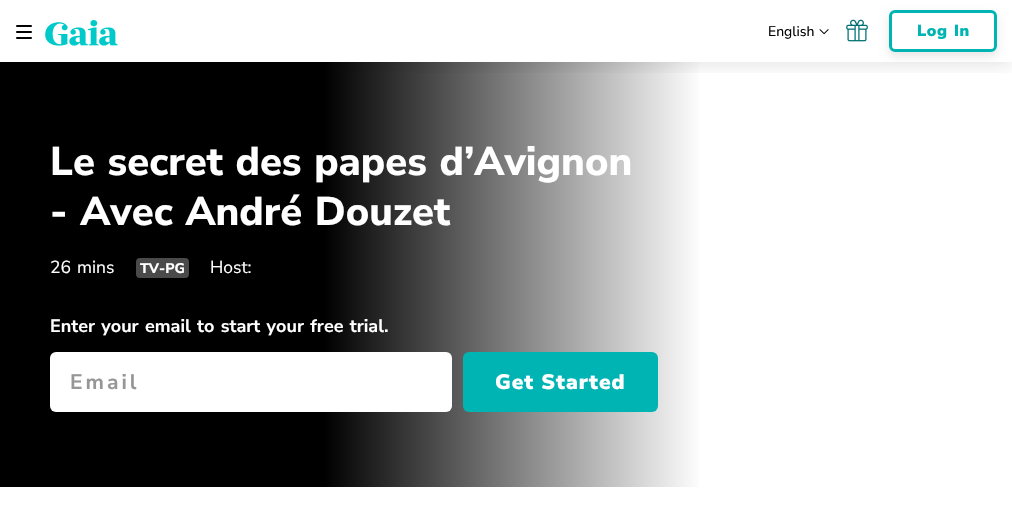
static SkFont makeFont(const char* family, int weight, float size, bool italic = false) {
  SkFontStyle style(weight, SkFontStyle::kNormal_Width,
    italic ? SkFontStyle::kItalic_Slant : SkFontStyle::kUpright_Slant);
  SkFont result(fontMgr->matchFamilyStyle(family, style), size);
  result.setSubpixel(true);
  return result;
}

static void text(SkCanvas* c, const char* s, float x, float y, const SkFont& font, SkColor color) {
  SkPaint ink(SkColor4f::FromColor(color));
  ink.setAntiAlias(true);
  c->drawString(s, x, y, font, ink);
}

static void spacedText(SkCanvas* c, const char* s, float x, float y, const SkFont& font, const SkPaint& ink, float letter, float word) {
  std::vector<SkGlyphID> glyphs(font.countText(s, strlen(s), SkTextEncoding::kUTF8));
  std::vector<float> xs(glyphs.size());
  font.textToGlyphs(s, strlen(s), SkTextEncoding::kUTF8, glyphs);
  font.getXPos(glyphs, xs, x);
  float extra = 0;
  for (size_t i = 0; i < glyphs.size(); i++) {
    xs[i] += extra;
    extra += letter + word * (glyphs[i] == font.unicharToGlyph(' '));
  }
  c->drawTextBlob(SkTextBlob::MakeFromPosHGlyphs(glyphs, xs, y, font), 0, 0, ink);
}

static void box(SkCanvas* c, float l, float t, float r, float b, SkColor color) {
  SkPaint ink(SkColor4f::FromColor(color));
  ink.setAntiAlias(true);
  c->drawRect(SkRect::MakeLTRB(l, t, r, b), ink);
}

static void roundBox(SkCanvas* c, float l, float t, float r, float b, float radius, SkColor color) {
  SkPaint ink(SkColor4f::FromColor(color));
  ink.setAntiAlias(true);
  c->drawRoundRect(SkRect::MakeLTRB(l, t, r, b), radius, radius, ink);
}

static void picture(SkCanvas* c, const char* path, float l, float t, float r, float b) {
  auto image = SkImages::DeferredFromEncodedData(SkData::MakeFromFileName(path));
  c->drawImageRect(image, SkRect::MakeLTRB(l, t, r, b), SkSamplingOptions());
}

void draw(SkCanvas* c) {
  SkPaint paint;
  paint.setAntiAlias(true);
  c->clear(0xffffffff);
  box(c, 0, 62, 324, 487, 0xff000000);
  {
    const SkColor colors[] = {0xff000000, 0xffffffff};
    const float stops[] = {0, 0.55f};
    const SkPoint ends[] = {{324, 275}, {1012, 275}};
    paint.setShader(SkGradientShader::MakeLinear(ends, colors, stops, 2, SkTileMode::kClamp));
    paint.setAlpha(255);
  }
  c->drawRect(SkRect::MakeLTRB(324, 62, 699, 487), paint);
  c->save();
  c->clipRect(SkRect::MakeLTRB(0, 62, 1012, 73));
  paint.setShader(nullptr);
  paint.setColor(0x1a000000);
  paint.setMaskFilter(SkMaskFilter::MakeBlur(kNormal_SkBlurStyle, 9));
  c->drawRect(SkRect::MakeLTRB(0, 3, 1012, 65), paint);
  paint.setMaskFilter(nullptr);
  c->restore();
  roundBox(c, 16, 25, 32, 27, 1, 0xff000000);
  roundBox(c, 16, 31, 32, 33, 1, 0xff000000);
  roundBox(c, 16, 37, 32, 39, 1, 0xff000000);
  picture(c, "img_01.png", 45, 20, 118, 46);
  SkFont face1 = makeFont("Nunito Sans", 400, 14);
  text(c, "English", 768, 36, face1, 0xff000000);
  picture(c, "img_02.png", 819, 29, 829, 35);
  picture(c, "img_03.png", 846, 19, 868, 42);
  c->save();
  c->clipPath(SkPathBuilder(SkPathFillType::kEvenOdd).moveTo(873, 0).lineTo(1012, 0).lineTo(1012, 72).lineTo(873, 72).close().moveTo(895, 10).lineTo(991, 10).cubicTo(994.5f, 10, 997, 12.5f, 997, 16).lineTo(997, 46).cubicTo(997, 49.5f, 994.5f, 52, 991, 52).lineTo(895, 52).cubicTo(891.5f, 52, 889, 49.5f, 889, 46).lineTo(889, 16).cubicTo(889, 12.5f, 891.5f, 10, 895, 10).close().detach(), true);
  paint.setMaskFilter(SkMaskFilter::MakeBlur(kNormal_SkBlurStyle, 5));
  c->drawRoundRect(SkRect::MakeLTRB(889, 14, 997, 56), 6, 6, paint);
  paint.setMaskFilter(nullptr);
  c->restore();
  paint.setStyle(SkPaint::kStroke_Style);
  paint.setStrokeWidth(3);
  paint.setColor(0xff01b4b4);
  c->drawRoundRect(SkRect::MakeLTRB(890.5f, 11.5f, 995.5f, 50.5f), 4.5f, 4.5f, paint);
  SkFont face2 = makeFont("Nunito Sans", 900, 16);
  paint.setStyle(SkPaint::kFill_Style);
  spacedText(c, "Log In", 917, 36, face2, paint, 0.5f, 1.5f);
  SkFont face3 = makeFont("Nunito Sans", 800, 40);
  paint.setColor(0xffffffff);
  spacedText(c, "Le secret des papes d’Avignon", 50, 175, face3, paint, 0, 1.5f);
  spacedText(c, "- Avec André Douzet", 50, 225, face3, paint, 0, 1.5f);
  SkFont face4 = makeFont("Nunito Sans", 400, 17.5f);
  spacedText(c, "26 mins", 50, 273, face4, paint, 0, 1.5f);
  roundBox(c, 136, 258, 189, 278, 4, 0xff4a4a4a);
  SkFont face5 = makeFont("Nunito Sans", 800, 14);
  text(c, "TV-PG", 140, 273, face5, 0xffffffff);
  text(c, "Host:", 210, 273, face4, 0xffffffff);
  SkFont face6 = makeFont("Nunito Sans", 700, 18);
  spacedText(c, "Enter your email to start your free trial.", 50, 332, face6, paint, 0, 1.5f);
  roundBox(c, 50, 352, 452, 412, 6, 0xffffffff);
  SkFont face7 = makeFont("Nunito Sans", 700, 21);
  paint.setColor(0xff989595);
  spacedText(c, "Email", 70, 389, face7, paint, 3, 0);
  roundBox(c, 463, 352, 658, 412, 6, 0xff01b4b4);
  SkFont face8 = makeFont("Nunito Sans", 900, 21);
  paint.setColor(0xffffffff);
  spacedText(c, "Get Started", 495, 389, face8, paint, 1, 0);
}
